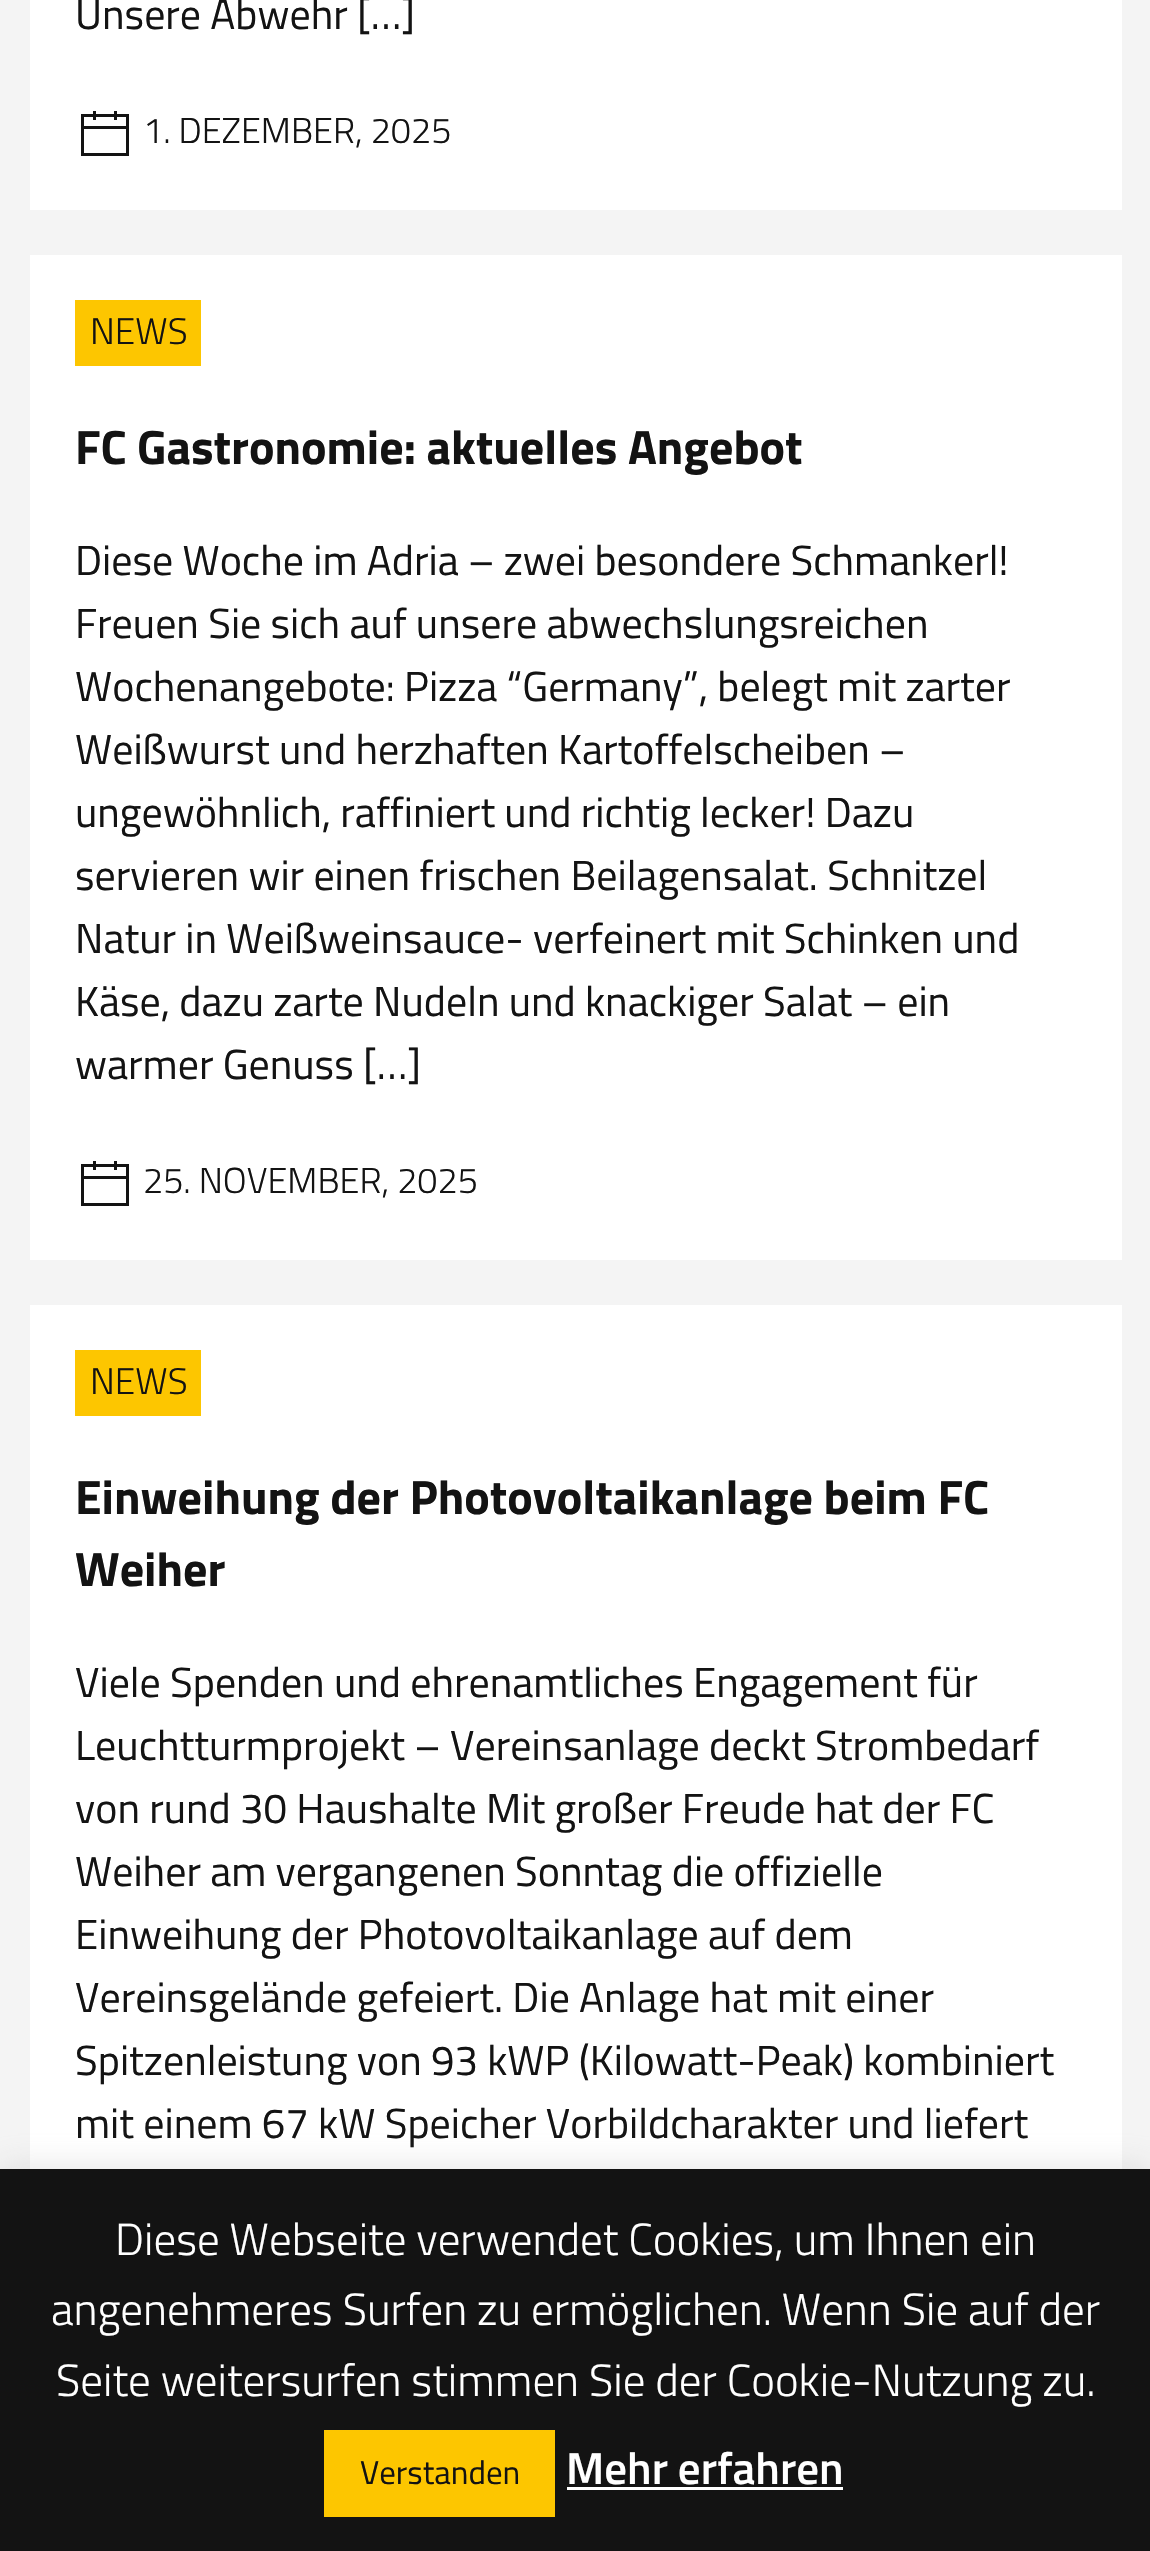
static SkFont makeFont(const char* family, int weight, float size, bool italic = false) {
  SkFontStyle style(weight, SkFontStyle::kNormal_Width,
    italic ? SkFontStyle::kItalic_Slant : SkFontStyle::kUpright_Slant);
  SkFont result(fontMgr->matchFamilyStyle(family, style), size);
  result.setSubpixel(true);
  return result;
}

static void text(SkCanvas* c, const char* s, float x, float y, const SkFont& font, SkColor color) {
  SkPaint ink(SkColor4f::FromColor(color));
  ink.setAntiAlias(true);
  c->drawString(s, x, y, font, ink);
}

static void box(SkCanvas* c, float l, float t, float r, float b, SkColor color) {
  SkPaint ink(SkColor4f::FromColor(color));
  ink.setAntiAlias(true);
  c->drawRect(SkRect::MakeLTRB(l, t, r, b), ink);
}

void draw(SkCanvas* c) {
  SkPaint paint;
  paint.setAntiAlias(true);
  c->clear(0xfff4f4f4);
  box(c, 30, 0, 1122, 210, 0xffffffff);
  SkFont face1 = makeFont("Titillium Web", 400, 42);
  text(c, "Unsere Abwehr […]", 75, 29, face1, 0xff131313);
  paint.setColor(0xff131313);
  c->drawPath(SkPathBuilder().moveTo(81, 114).lineTo(81, 156).lineTo(129, 156).lineTo(129, 114).close().moveTo(126, 153).lineTo(84, 153).lineTo(84, 129).lineTo(126, 129).close().moveTo(126, 126).lineTo(84, 126).lineTo(84, 117).lineTo(126, 117).close().detach(), paint);
  box(c, 93, 111, 96, 120, 0xff131313);
  box(c, 114, 111, 117, 120, 0xff131313);
  SkFont face2 = makeFont("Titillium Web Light", 300, 36);
  text(c, "1. DEZEMBER, 2025", 143, 143, face2, 0xff131313);
  box(c, 30, 255, 1122, 1260, 0xffffffff);
  box(c, 75, 300, 201, 366, 0xfffdc600);
  SkFont face3 = makeFont("Titillium Web Light", 300, 37);
  text(c, "NEWS", 90, 344, face3, 0xff131313);
  SkFont face4 = makeFont("Titillium Web", 700, 48);
  text(c, "FC Gastronomie: aktuelles Angebot", 75, 464, face4, 0xff131313);
  text(c, "Diese Woche im Adria – zwei besondere Schmankerl!", 75, 575, face1, 0xff131313);
  text(c, "Freuen Sie sich auf unsere abwechslungsreichen", 75, 638, face1, 0xff131313);
  text(c, "Wochenangebote: Pizza “Germany”, belegt mit zarter", 75, 701, face1, 0xff131313);
  text(c, "Weißwurst und herzhaften Kartoffelscheiben –", 75, 764, face1, 0xff131313);
  text(c, "ungewöhnlich, raffiniert und richtig lecker! Dazu", 75, 827, face1, 0xff131313);
  text(c, "servieren wir einen frischen Beilagensalat. Schnitzel", 75, 890, face1, 0xff131313);
  text(c, "Natur in Weißweinsauce- verfeinert mit Schinken und", 75, 953, face1, 0xff131313);
  text(c, "Käse, dazu zarte Nudeln und knackiger Salat – ein", 75, 1016, face1, 0xff131313);
  text(c, "warmer Genuss […]", 75, 1079, face1, 0xff131313);
  c->drawPath(SkPathBuilder().moveTo(81, 1164).lineTo(81, 1206).lineTo(129, 1206).lineTo(129, 1164).close().moveTo(126, 1203).lineTo(84, 1203).lineTo(84, 1179).lineTo(126, 1179).close().moveTo(126, 1176).lineTo(84, 1176).lineTo(84, 1167).lineTo(126, 1167).close().detach(), paint);
  box(c, 93, 1161, 96, 1170, 0xff131313);
  box(c, 114, 1161, 117, 1170, 0xff131313);
  text(c, "25. NOVEMBER, 2025", 143, 1193, face2, 0xff131313);
  box(c, 30, 1305, 1122, 2169, 0xffffffff);
  box(c, 75, 1350, 201, 1416, 0xfffdc600);
  text(c, "NEWS", 90, 1394, face3, 0xff131313);
  text(c, "Einweihung der Photovoltaikanlage beim FC", 75, 1514, face4, 0xff131313);
  text(c, "Weiher", 75, 1586, face4, 0xff131313);
  text(c, "Viele Spenden und ehrenamtliches Engagement für", 75, 1697, face1, 0xff131313);
  text(c, "Leuchtturmprojekt – Vereinsanlage deckt Strombedarf", 75, 1760, face1, 0xff131313);
  text(c, "von rund 30 Haushalte Mit großer Freude hat der FC", 75, 1823, face1, 0xff131313);
  text(c, "Weiher am vergangenen Sonntag die offizielle", 75, 1886, face1, 0xff131313);
  text(c, "Einweihung der Photovoltaikanlage auf dem", 75, 1949, face1, 0xff131313);
  text(c, "Vereinsgelände gefeiert. Die Anlage hat mit einer", 75, 2012, face1, 0xff131313);
  text(c, "Spitzenleistung von 93 kWP (Kilowatt-Peak) kombiniert", 75, 2075, face1, 0xff131313);
  text(c, "mit einem 67 kW Speicher Vorbildcharakter und liefert", 75, 2138, face1, 0xff131313);
  paint.setColor(0x4dacabab);
  paint.setMaskFilter(SkMaskFilter::MakeBlur(kNormal_SkBlurStyle, 15));
  c->drawRect(SkRect::MakeLTRB(0, 2166, 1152, 2550), paint);
  paint.setMaskFilter(nullptr);
  box(c, 0, 2169, 1150, 2551, 0xff131313);
  SkFont face5 = makeFont("Titillium Web Light", 300, 45);
  text(c, "Diese Webseite verwendet Cookies, um Ihnen ein", 115, 2255, face5, 0xffffffff);
  text(c, "angenehmeres Surfen zu ermöglichen. Wenn Sie auf der", 51, 2325, face5, 0xffffffff);
  text(c, "Seite weitersurfen stimmen Sie der Cookie-Nutzung zu.", 56, 2396, face5, 0xffffffff);
  box(c, 324, 2430, 555, 2517, 0xfffdc600);
  SkFont face6 = makeFont("Titillium Web", 400, 33);
  text(c, "Verstanden", 360, 2484, face6, 0xff131313);
  SkFont face7 = makeFont("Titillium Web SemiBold", 600, 45);
  text(c, "Mehr erfahren", 566, 2484, face7, 0xffffffff);
  box(c, 567, 2487, 843, 2490, 0xffffffff);
}
